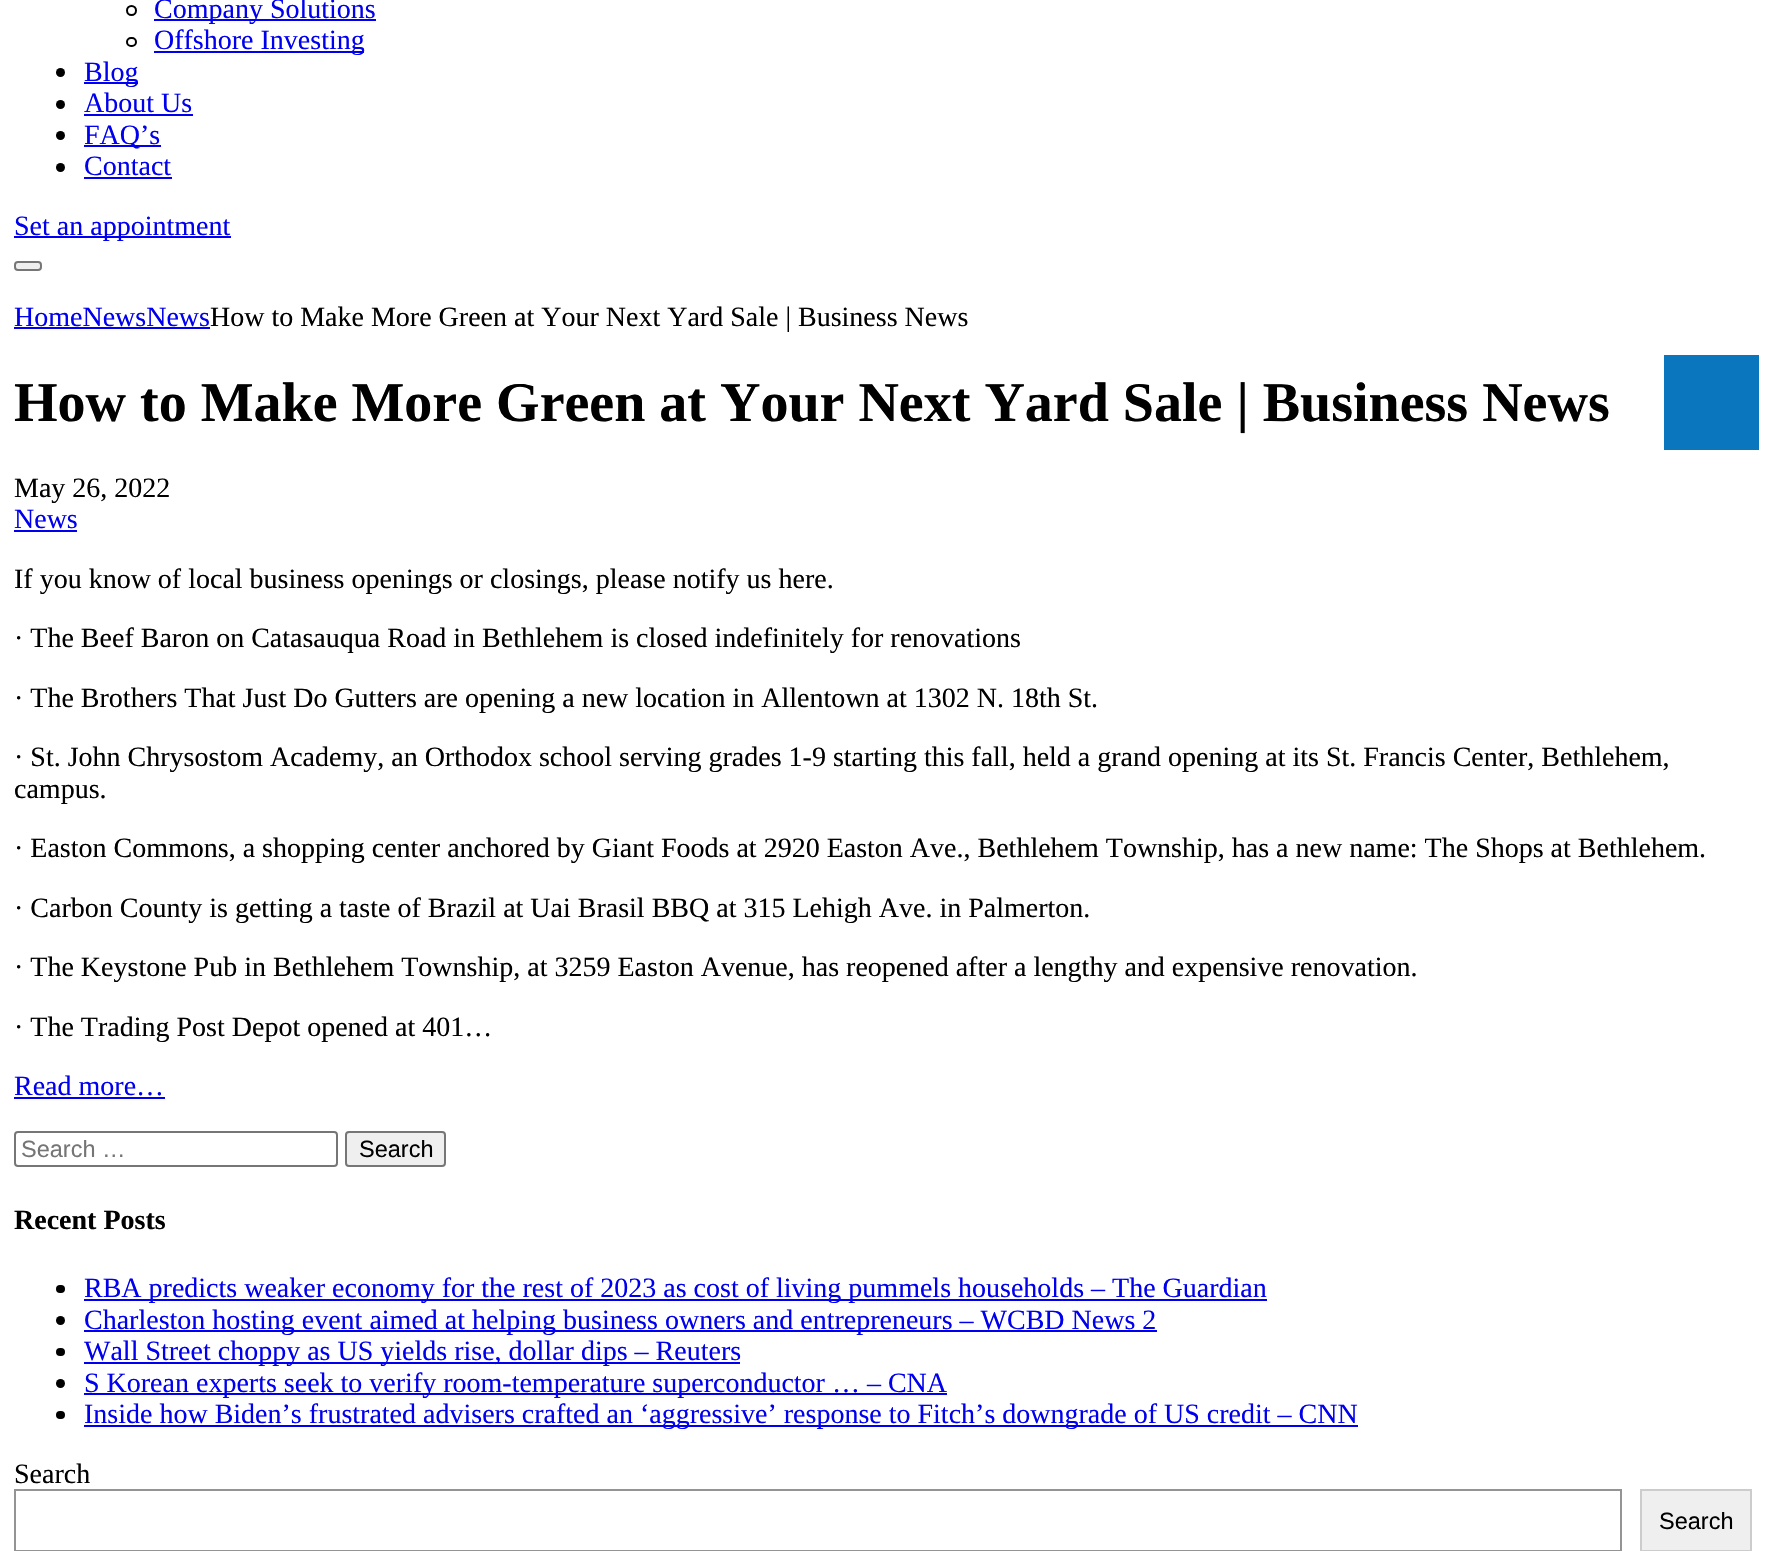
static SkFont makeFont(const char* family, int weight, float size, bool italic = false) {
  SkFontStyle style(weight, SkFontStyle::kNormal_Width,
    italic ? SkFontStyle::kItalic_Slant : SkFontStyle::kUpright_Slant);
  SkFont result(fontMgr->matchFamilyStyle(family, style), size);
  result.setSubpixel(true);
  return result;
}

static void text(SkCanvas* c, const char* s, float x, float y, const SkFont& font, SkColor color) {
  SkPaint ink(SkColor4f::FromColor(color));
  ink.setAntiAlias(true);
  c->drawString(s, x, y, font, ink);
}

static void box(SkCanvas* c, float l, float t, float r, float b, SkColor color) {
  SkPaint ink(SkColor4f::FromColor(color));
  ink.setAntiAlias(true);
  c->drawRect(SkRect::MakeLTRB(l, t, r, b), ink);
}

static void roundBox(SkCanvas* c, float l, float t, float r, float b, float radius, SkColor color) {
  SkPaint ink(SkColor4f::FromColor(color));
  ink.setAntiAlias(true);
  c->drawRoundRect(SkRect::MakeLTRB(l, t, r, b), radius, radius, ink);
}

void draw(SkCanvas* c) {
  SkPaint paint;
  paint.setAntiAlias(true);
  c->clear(0xffffffff);
  paint.setStyle(SkPaint::kStroke_Style);
  paint.setStrokeWidth(2);
  paint.setColor(0xff000000);
  c->drawCircle(131.5f, 10.5f, 4.5f, paint);
  box(c, 154, 19, 376, 21, 0xff0000ee);
  SkFont face1 = makeFont("Liberation Serif", 400, 28);
  text(c, "Company Solutions", 154, 18, face1, 0xff0000ee);
  c->drawRoundRect(SkRect::MakeLTRB(127, 38, 136, 46), 4, 4, paint);
  box(c, 154, 51, 364, 53, 0xff0000ee);
  text(c, "Offshore Investing", 154, 49, face1, 0xff0000ee);
  paint.setStyle(SkPaint::kFill_Style);
  c->drawCircle(60.5f, 72.5f, 4.5f, paint);
  box(c, 84, 82, 138, 84, 0xff0000ee);
  text(c, "Blog", 84, 81, face1, 0xff0000ee);
  c->drawCircle(60.5f, 104.5f, 4.5f, paint);
  text(c, "About Us", 84, 112, face1, 0xff0000ee);
  box(c, 84, 114, 193, 116, 0xff0000ee);
  c->drawCircle(60.5f, 135.5f, 4.5f, paint);
  box(c, 84, 145, 161, 147, 0xff0000ee);
  text(c, "FAQ’s", 84, 144, face1, 0xff0000ee);
  c->drawCircle(60.5f, 167.5f, 4.5f, paint);
  text(c, "Contact", 84, 175, face1, 0xff0000ee);
  box(c, 84, 177, 172, 179, 0xff0000ee);
  box(c, 14, 236, 231, 238, 0xff0000ee);
  text(c, "Set an appointment", 14, 235, face1, 0xff0000ee);
  paint.setColor(0xffefefef);
  c->drawRoundRect(SkRect::MakeLTRB(15, 262, 41, 270), 3, 3, paint);
  paint.setStyle(SkPaint::kStroke_Style);
  paint.setColor(0xff767676);
  c->drawRoundRect(SkRect::MakeLTRB(15, 262, 41, 270), 3, 3, paint);
  text(c, "HomeNewsNews", 14, 326, face1, 0xff0000ee);
  box(c, 14, 327, 210, 329, 0xff0000ee);
  text(c, "How to Make More Green at Your Next Yard Sale | Business News", 210, 326, face1, 0xff000000);
  SkFont face2 = makeFont("Liberation Serif", 700, 56);
  text(c, "How to Make More Green at Your Next Yard Sale | Business News", 14, 421, face2, 0xff000000);
  text(c, "May 26, 2022", 14, 497, face1, 0xff000000);
  text(c, "News", 14, 528, face1, 0xff0000ee);
  box(c, 14, 530, 77, 532, 0xff0000ee);
  text(c, "If you know of local business openings or closings, please notify us here.", 14, 588, face1, 0xff000000);
  text(c, "· The Beef Baron on Catasauqua Road in Bethlehem is closed indefinitely for renovations", 14, 647, face1, 0xff000000);
  text(c, "· The Brothers That Just Do Gutters are opening a new location in Allentown at 1302 N. 18th St.", 14, 707, face1, 0xff000000);
  text(c, "· St. John Chrysostom Academy, an Orthodox school serving grades 1-9 starting this fall, held a grand opening at its St. Francis Center, Bethlehem,", 14, 766, face1, 0xff000000);
  text(c, "campus.", 14, 798, face1, 0xff000000);
  text(c, "· Easton Commons, a shopping center anchored by Giant Foods at 2920 Easton Ave., Bethlehem Township, has a new name: The Shops at Bethlehem.", 14, 857, face1, 0xff000000);
  text(c, "· Carbon County is getting a taste of Brazil at Uai Brasil BBQ at 315 Lehigh Ave. in Palmerton.", 14, 917, face1, 0xff000000);
  text(c, "· The Keystone Pub in Bethlehem Township, at 3259 Easton Avenue, has reopened after a lengthy and expensive renovation.", 14, 976, face1, 0xff000000);
  text(c, "· The Trading Post Depot opened at 401…", 14, 1036, face1, 0xff000000);
  text(c, "Read more…", 14, 1095, face1, 0xff0000ee);
  box(c, 14, 1097, 165, 1099, 0xff0000ee);
  c->drawRoundRect(SkRect::MakeLTRB(15, 1132, 337, 1166), 3, 3, paint);
  SkFont face3 = makeFont("Liberation Sans", 400, 23.5f);
  text(c, "Search …", 21, 1157, face3, 0xff757575);
  paint.setStyle(SkPaint::kFill_Style);
  paint.setColor(0xffefefef);
  c->drawRoundRect(SkRect::MakeLTRB(346, 1132, 445, 1166), 3, 3, paint);
  paint.setStyle(SkPaint::kStroke_Style);
  paint.setColor(0xff767676);
  c->drawRoundRect(SkRect::MakeLTRB(346, 1132, 445, 1166), 3, 3, paint);
  text(c, "Search", 359, 1157, face3, 0xff000000);
  SkFont face4 = makeFont("Liberation Serif", 700, 28);
  text(c, "Recent Posts", 14, 1229, face4, 0xff000000);
  roundBox(c, 56, 1285, 65, 1293, 4, 0xff000000);
  box(c, 84, 1299, 1267, 1301, 0xff0000ee);
  text(c, "RBA predicts weaker economy for the rest of 2023 as cost of living pummels households – The Guardian", 84, 1297, face1, 0xff0000ee);
  paint.setStyle(SkPaint::kFill_Style);
  paint.setColor(0xff000000);
  c->drawCircle(60.5f, 1320.5f, 4.5f, paint);
  box(c, 84, 1330, 1157, 1332, 0xff0000ee);
  text(c, "Charleston hosting event aimed at helping business owners and entrepreneurs – WCBD News 2", 84, 1329, face1, 0xff0000ee);
  roundBox(c, 56, 1348, 65, 1356, 4, 0xff000000);
  box(c, 84, 1362, 740, 1364, 0xff0000ee);
  text(c, "Wall Street choppy as US yields rise, dollar dips – Reuters", 84, 1360, face1, 0xff0000ee);
  c->drawCircle(60.5f, 1383.5f, 4.5f, paint);
  box(c, 84, 1393, 947, 1395, 0xff0000ee);
  text(c, "S Korean experts seek to verify room-temperature superconductor … – CNA", 84, 1392, face1, 0xff0000ee);
  roundBox(c, 56, 1411, 65, 1419, 4, 0xff000000);
  box(c, 84, 1425, 1358, 1427, 0xff0000ee);
  text(c, "Inside how Biden’s frustrated advisers crafted an ‘aggressive’ response to Fitch’s downgrade of US credit – CNN", 84, 1423, face1, 0xff0000ee);
  text(c, "Search", 14, 1483, face1, 0xff000000);
  paint.setStyle(SkPaint::kStroke_Style);
  paint.setColor(0xff949494);
  c->drawRect(SkRect::MakeLTRB(15, 1490, 1621, 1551), paint);
  paint.setStyle(SkPaint::kFill_Style);
  paint.setColor(0xffefefef);
  c->drawRect(SkRect::MakeLTRB(1641, 1490, 1751, 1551), paint);
  paint.setStyle(SkPaint::kStroke_Style);
  paint.setColor(0xffcccccc);
  c->drawRect(SkRect::MakeLTRB(1641, 1490, 1751, 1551), paint);
  text(c, "Search", 1659, 1529, face3, 0xff000000);
  paint.setStyle(SkPaint::kFill_Style);
  paint.setColor(0xff0a76be);
  c->drawRoundRect(SkRect::MakeLTRB(1661.5f, 352.5f, 1761.5f, 452.5f), 1.5f, 1.5f, paint);
  paint.setStyle(SkPaint::kStroke_Style);
  paint.setStrokeWidth(5);
  paint.setColor(0xffffffff);
  c->drawRoundRect(SkRect::MakeLTRB(1661.5f, 352.5f, 1761.5f, 452.5f), 1.5f, 1.5f, paint);
}
